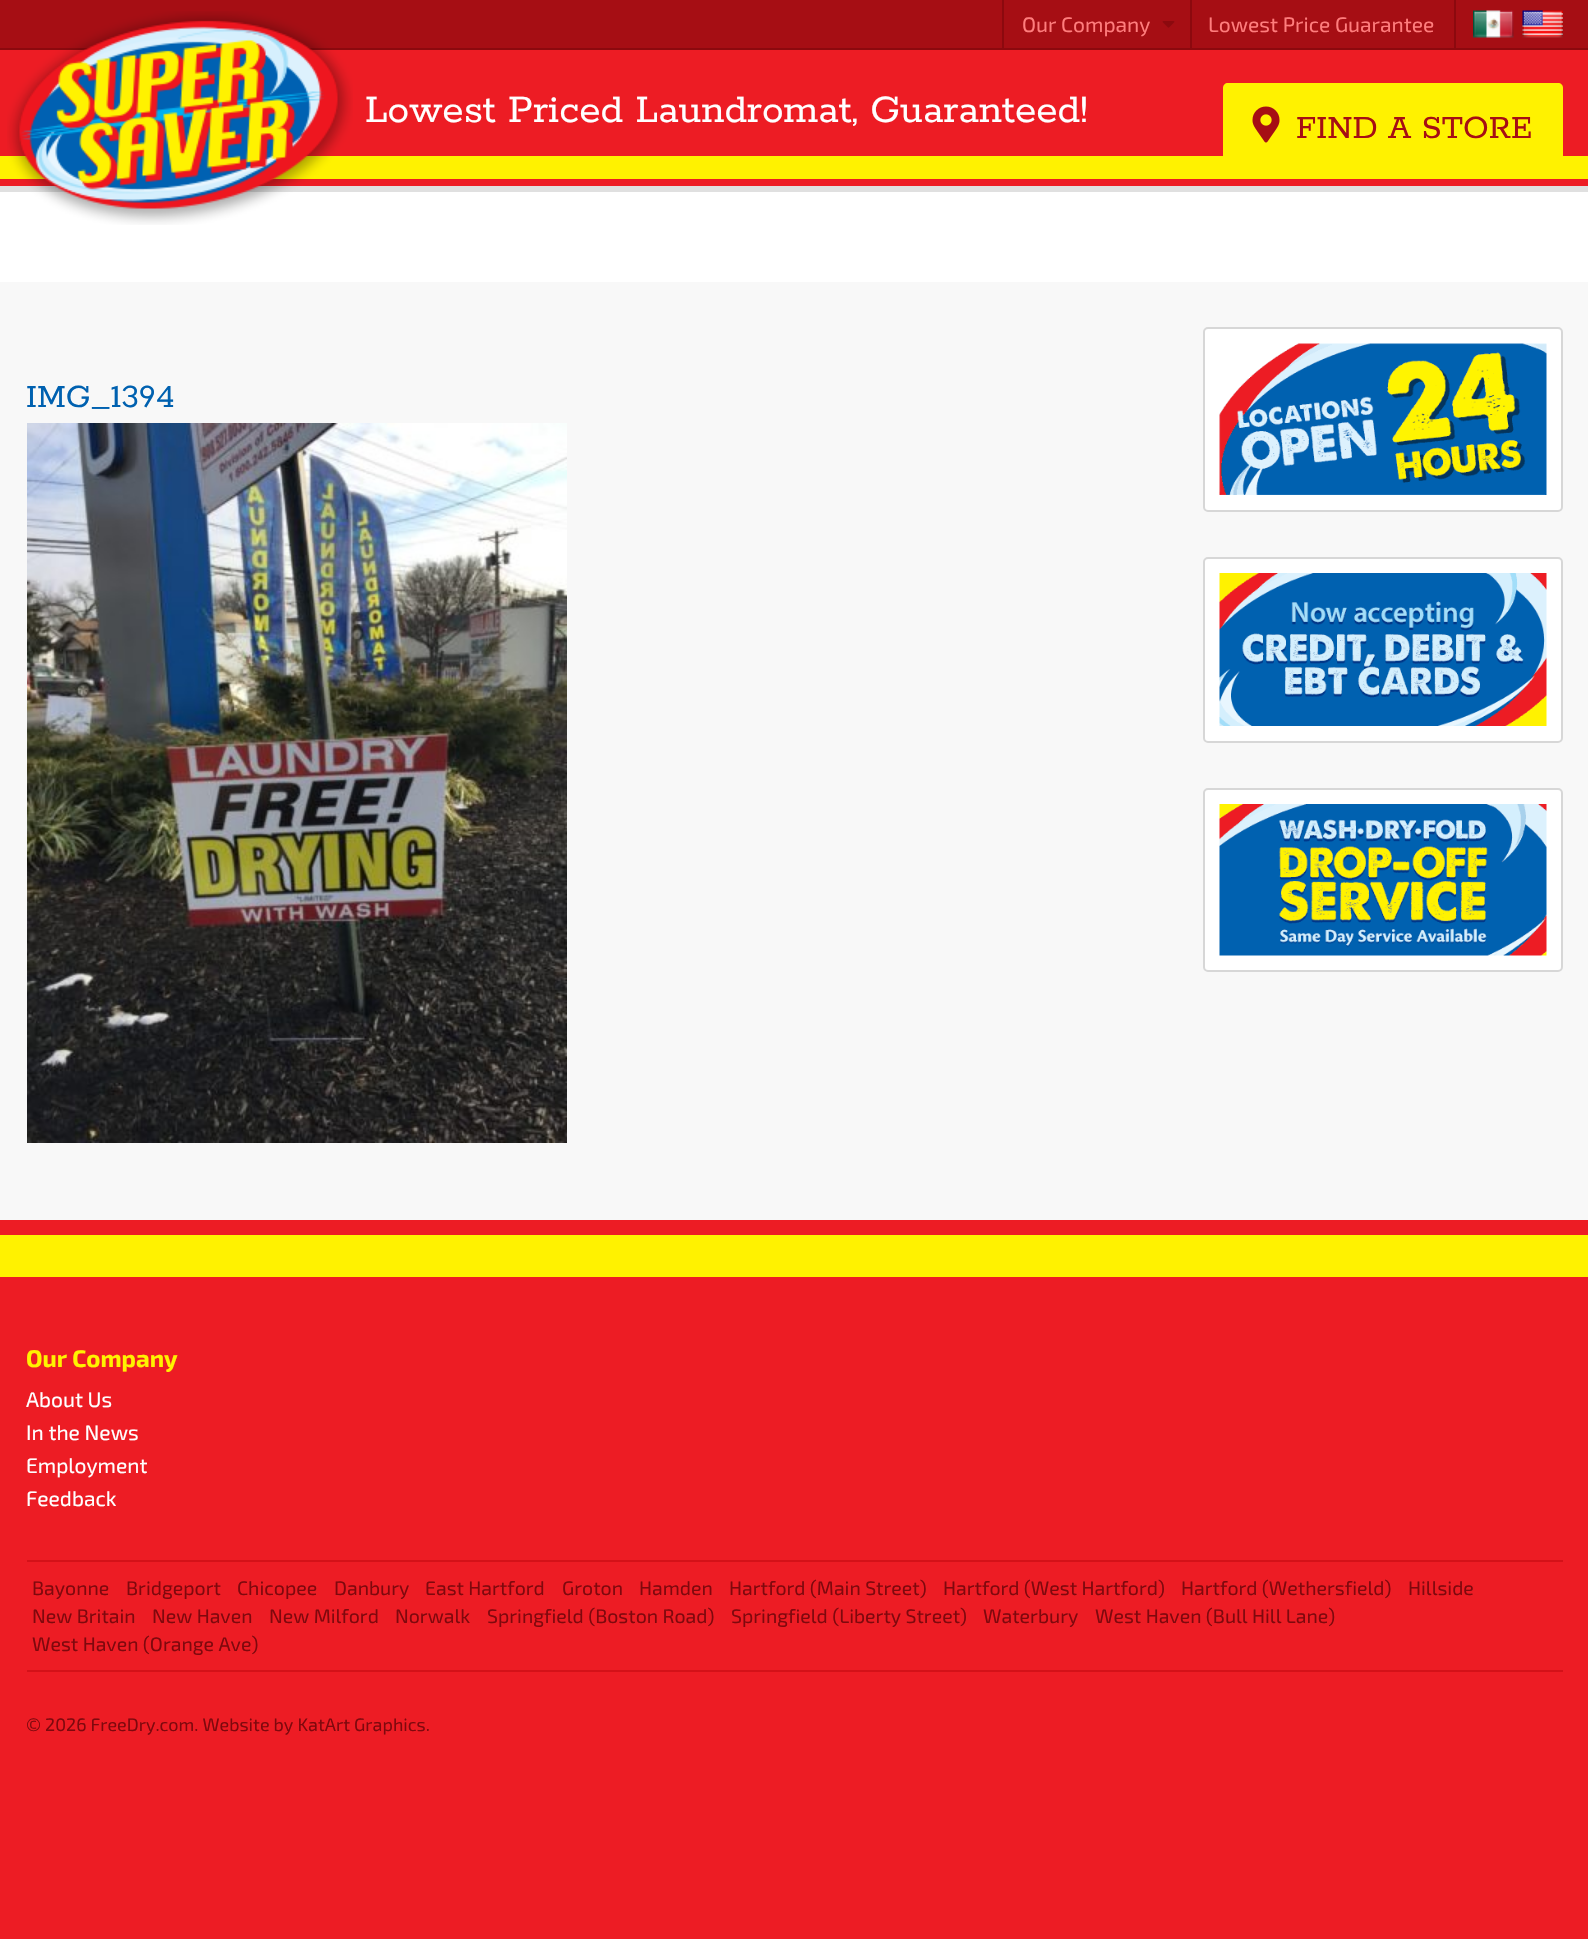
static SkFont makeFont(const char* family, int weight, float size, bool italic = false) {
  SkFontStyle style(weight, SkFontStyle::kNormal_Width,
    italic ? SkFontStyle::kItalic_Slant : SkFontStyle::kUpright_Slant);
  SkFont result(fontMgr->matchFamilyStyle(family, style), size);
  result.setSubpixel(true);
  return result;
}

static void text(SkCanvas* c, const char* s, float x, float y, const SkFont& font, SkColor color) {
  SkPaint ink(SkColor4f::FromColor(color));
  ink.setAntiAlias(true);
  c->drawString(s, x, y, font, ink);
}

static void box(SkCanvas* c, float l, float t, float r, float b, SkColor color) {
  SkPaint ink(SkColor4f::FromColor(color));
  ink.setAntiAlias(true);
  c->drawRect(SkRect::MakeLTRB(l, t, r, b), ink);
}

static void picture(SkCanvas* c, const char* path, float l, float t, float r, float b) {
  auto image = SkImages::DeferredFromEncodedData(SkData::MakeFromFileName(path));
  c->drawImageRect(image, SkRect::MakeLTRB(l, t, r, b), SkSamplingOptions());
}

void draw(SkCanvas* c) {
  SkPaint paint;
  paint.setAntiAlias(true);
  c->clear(0xffed1c24);
  box(c, 0, 0, 1588, 48, 0xffa60e14);
  box(c, 0, 48, 1588, 50, 0xff8c090e);
  box(c, 1454, 0, 1456, 48, 0xff8c090e);
  box(c, 1002, 0, 1004, 48, 0xff8c090e);
  SkFont face1 = makeFont("Exo 2", 400, 21);
  text(c, "Our Company", 1022, 32, face1, 0xffff7d7d);
  picture(c, "img_01.png", 1162, 21, 1175, 28);
  box(c, 1190, 0, 1192, 48, 0xff8c090e);
  text(c, "Lowest Price Guarantee", 1208, 32, face1, 0xffff7d7d);
  picture(c, "img_02.png", 1473, 10, 1514, 38);
  picture(c, "img_03.png", 1522, 10, 1563, 38);
  paint.setColor(0xffe0e0e0);
  c->drawPath(SkPathBuilder().moveTo(0, 186).lineTo(0, 192).lineTo(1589, 192).lineTo(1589, 56).lineTo(1588, 56).lineTo(1588, 186).close().detach(), paint);
  box(c, 0, 156, 1588, 179, 0xfffff200);
  box(c, 0, 192, 1588, 282, 0xffffffff);
  picture(c, "img_04.png", 7, 11, 353, 225);
  SkFont face2 = makeFont("Rokkitt", 600, 43.25f);
  text(c, "Lowest Priced Laundromat, Guaranteed!", 365, 122, face2, 0xffffffff);
  paint.setColor(0xfffff200);
  c->drawPath(SkPathBuilder().moveTo(1228, 83).lineTo(1558, 83).cubicTo(1561, 83, 1563, 85, 1563, 88).lineTo(1563, 159).lineTo(1223, 159).lineTo(1223, 88).cubicTo(1223, 85, 1225, 83, 1228, 83).close().detach(), paint);
  picture(c, "img_05.png", 1252, 106, 1280, 143);
  SkFont face3 = makeFont("Rokkitt", 600, 36);
  text(c, "FIND A STORE", 1296, 138, face3, 0xffa60e14);
  box(c, 0, 282, 1588, 1220, 0xfff8f8f8);
  text(c, "IMG_1394", 26, 407, face3, 0xff0061b0);
  picture(c, "img_06.png", 27, 423, 567, 1143);
  paint.setColor(0xffffffff);
  c->drawRoundRect(SkRect::MakeLTRB(1204, 328, 1562, 511), 4, 4, paint);
  paint.setStyle(SkPaint::kStroke_Style);
  paint.setStrokeWidth(2);
  paint.setColor(0xffd7d7d7);
  c->drawRoundRect(SkRect::MakeLTRB(1204, 328, 1562, 511), 4, 4, paint);
  picture(c, "img_07.png", 1219, 343, 1547, 495);
  paint.setStyle(SkPaint::kFill_Style);
  paint.setColor(0xffffffff);
  c->drawRoundRect(SkRect::MakeLTRB(1204, 558, 1562, 742), 4, 4, paint);
  paint.setStyle(SkPaint::kStroke_Style);
  paint.setColor(0xffd7d7d7);
  c->drawRoundRect(SkRect::MakeLTRB(1204, 558, 1562, 742), 4, 4, paint);
  picture(c, "img_08.png", 1219, 573, 1547, 726);
  paint.setStyle(SkPaint::kFill_Style);
  paint.setColor(0xffffffff);
  c->drawRoundRect(SkRect::MakeLTRB(1204, 789, 1562, 971), 4, 4, paint);
  paint.setStyle(SkPaint::kStroke_Style);
  paint.setColor(0xffd7d7d7);
  c->drawRoundRect(SkRect::MakeLTRB(1204, 789, 1562, 971), 4, 4, paint);
  picture(c, "img_09.png", 1219, 804, 1547, 956);
  box(c, 0, 1235, 1588, 1277, 0xfffff200);
  SkFont face4 = makeFont("Exo 2", 700, 24);
  text(c, "Our Company", 26, 1367, face4, 0xfffff200);
  text(c, "About Us", 26, 1407, face1, 0xffffffff);
  text(c, "In the News", 26, 1440, face1, 0xffffffff);
  text(c, "Employment", 26, 1473, face1, 0xffffffff);
  text(c, "Feedback", 26, 1506, face1, 0xffffffff);
  box(c, 27, 1560, 1563, 1562, 0xffd41118);
  box(c, 27, 1670, 1563, 1672, 0xffd41118);
  SkFont face5 = makeFont("Exo 2", 400, 19.5f);
  text(c, "Bayonne", 32, 1595, face5, 0xff7f080d);
  text(c, "Bridgeport", 126, 1595, face5, 0xff7f080d);
  text(c, "Chicopee", 237, 1595, face5, 0xff7f080d);
  text(c, "Danbury", 334, 1595, face5, 0xff7f080d);
  text(c, "East Hartford", 425, 1595, face5, 0xff7f080d);
  text(c, "Groton", 562, 1595, face5, 0xff7f080d);
  text(c, "Hamden", 639, 1595, face5, 0xff7f080d);
  text(c, "Hartford (Main Street)", 729, 1595, face5, 0xff7f080d);
  text(c, "Hartford (West Hartford)", 943, 1595, face5, 0xff7f080d);
  text(c, "Hartford (Wethersfield)", 1181, 1595, face5, 0xff7f080d);
  text(c, "Hillside", 1408, 1595, face5, 0xff7f080d);
  text(c, "New Britain", 32, 1623, face5, 0xff7f080d);
  text(c, "New Haven", 152, 1623, face5, 0xff7f080d);
  text(c, "New Milford", 269, 1623, face5, 0xff7f080d);
  text(c, "Norwalk", 395, 1623, face5, 0xff7f080d);
  text(c, "Springfield (Boston Road)", 487, 1623, face5, 0xff7f080d);
  text(c, "Springfield (Liberty Street)", 731, 1623, face5, 0xff7f080d);
  text(c, "Waterbury", 983, 1623, face5, 0xff7f080d);
  text(c, "West Haven (Bull Hill Lane)", 1095, 1623, face5, 0xff7f080d);
  text(c, "West Haven (Orange Ave)", 32, 1651, face5, 0xff7f080d);
  SkFont face6 = makeFont("Exo 2", 400, 18);
  text(c, "© 2026 FreeDry.com. Website by KatArt Graphics.", 26, 1731, face6, 0xff7f080d);
}
